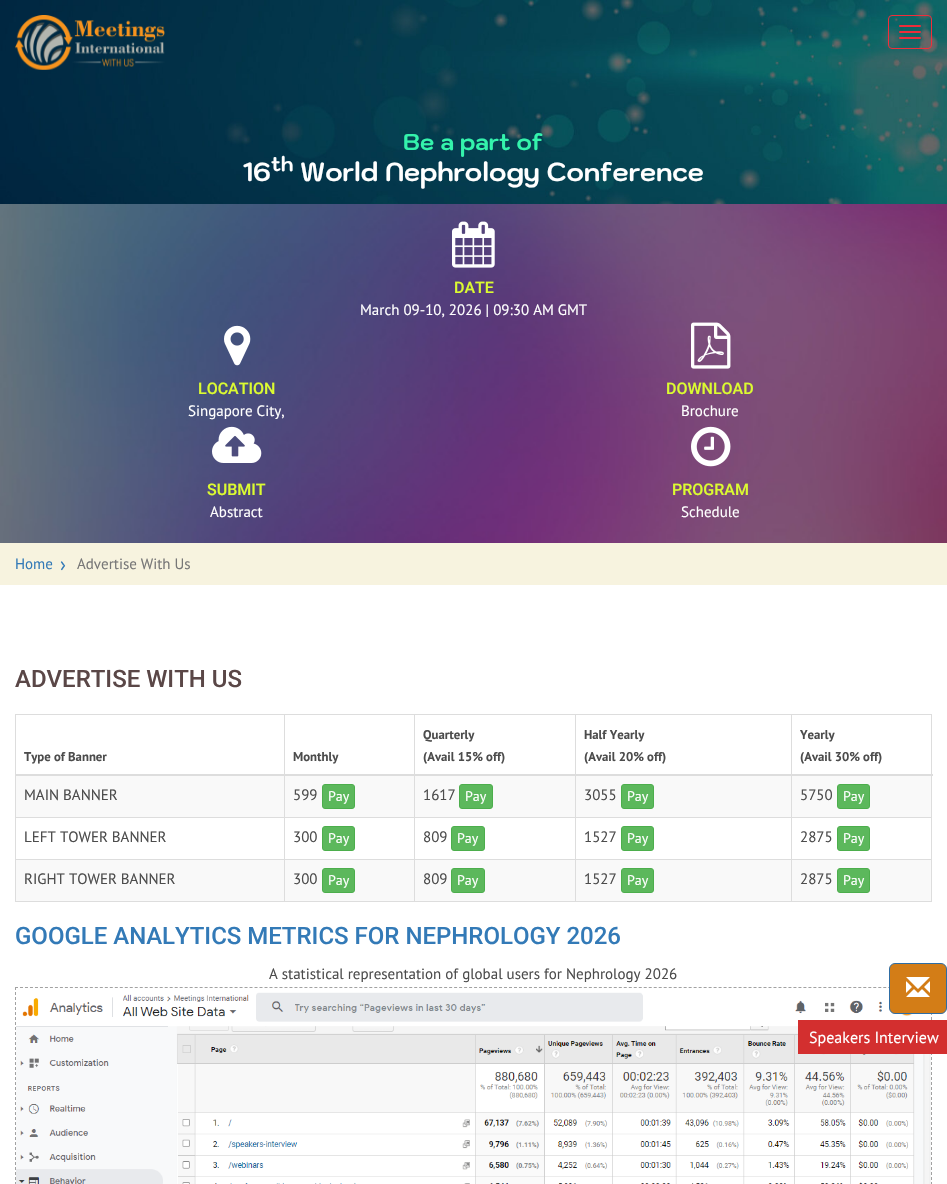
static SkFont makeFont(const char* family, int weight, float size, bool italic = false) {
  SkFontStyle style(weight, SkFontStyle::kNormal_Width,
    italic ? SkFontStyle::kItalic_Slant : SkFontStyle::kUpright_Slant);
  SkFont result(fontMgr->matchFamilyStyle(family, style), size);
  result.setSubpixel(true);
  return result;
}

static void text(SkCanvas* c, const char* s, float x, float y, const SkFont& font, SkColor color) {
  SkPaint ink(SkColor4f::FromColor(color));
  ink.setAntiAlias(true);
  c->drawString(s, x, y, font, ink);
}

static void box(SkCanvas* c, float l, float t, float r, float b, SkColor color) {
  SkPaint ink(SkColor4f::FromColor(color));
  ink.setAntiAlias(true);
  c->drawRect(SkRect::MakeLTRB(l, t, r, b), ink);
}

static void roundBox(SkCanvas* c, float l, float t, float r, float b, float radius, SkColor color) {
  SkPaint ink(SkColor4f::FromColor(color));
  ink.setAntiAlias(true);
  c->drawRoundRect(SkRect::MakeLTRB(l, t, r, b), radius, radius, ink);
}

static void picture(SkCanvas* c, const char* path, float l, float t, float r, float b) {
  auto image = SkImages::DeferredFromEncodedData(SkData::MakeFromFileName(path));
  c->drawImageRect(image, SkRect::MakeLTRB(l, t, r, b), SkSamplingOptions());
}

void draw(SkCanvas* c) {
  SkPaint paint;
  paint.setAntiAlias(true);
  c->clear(0xffffffff);
  picture(c, "img_02.png", 0, 0, 947, 204);
  picture(c, "img_01.png", 15, 15, 165, 70);
  paint.setStyle(SkPaint::kStroke_Style);
  paint.setStrokeWidth(1);
  paint.setColor(0xfff32d3a);
  c->drawRoundRect(SkRect::MakeLTRB(888.5f, 15.5f, 931.5f, 48.5f), 3.5f, 3.5f, paint);
  roundBox(c, 899, 25, 921, 27, 1, 0xffed2d3a);
  roundBox(c, 899, 31, 921, 33, 1, 0xffed2d3a);
  roundBox(c, 899, 37, 921, 39, 1, 0xffed2d3a);
  SkFont face1 = makeFont("Kodchasan", 700, 23);
  text(c, "Be a part of", 403, 150, face1, 0xff34f3ac);
  SkFont face2 = makeFont("Kodchasan", 700, 26);
  text(c, "16", 243, 181, face2, 0xffffffff);
  SkFont face3 = makeFont("Kodchasan", 700, 20);
  text(c, "th", 271, 171, face3, 0xffffffff);
  text(c, "World Nephrology Conference", 300, 181, face2, 0xffffffff);
  picture(c, "img_03.png", 0, 204, 947, 543);
  picture(c, "img_04.png", 452, 221, 495, 268);
  SkFont face4 = makeFont("Roboto", 500, 16);
  text(c, "DATE", 454, 293, face4, 0xffdcfb31);
  SkFont face5 = makeFont("PT Sans", 400, 15);
  text(c, "March 09-10, 2026 | 09:30 AM GMT", 360, 315, face5, 0xffffffff);
  picture(c, "img_05.png", 224, 325, 251, 366);
  text(c, "LOCATION", 198, 394, face4, 0xffdcfb31);
  text(c, "Singapore City,", 188, 416, face5, 0xffffffff);
  picture(c, "img_06.png", 691, 322, 731, 369);
  text(c, "DOWNLOAD", 666, 394, face4, 0xffdcfb31);
  text(c, "Brochure", 681, 416, face5, 0xffffffff);
  picture(c, "img_07.png", 212, 426, 262, 463);
  text(c, "SUBMIT", 207, 495, face4, 0xffdcfb31);
  text(c, "Abstract", 210, 517, face5, 0xffffffff);
  picture(c, "img_08.png", 691, 426, 731, 467);
  text(c, "PROGRAM", 672, 495, face4, 0xffdcfb31);
  text(c, "Schedule", 681, 517, face5, 0xffffffff);
  box(c, 0, 543, 947, 585, 0xfff7f3df);
  text(c, "Home", 15, 569, face5, 0xff337ab7);
  SkFont face6 = makeFont("PT Sans", 400, 20);
  text(c, "›", 60, 571, face6, 0xff337ab7);
  text(c, "Advertise With Us", 77, 569, face5, 0xff777777);
  SkFont face7 = makeFont("Roboto", 500, 24);
  text(c, "ADVERTISE WITH US", 15, 687, face7, 0xff5a4747);
  box(c, 15, 714, 932, 715, 0xffdddddd);
  box(c, 931, 714, 932, 902, 0xffdddddd);
  box(c, 15, 901, 932, 902, 0xffdddddd);
  box(c, 15, 714, 16, 902, 0xffdddddd);
  SkFont face8 = makeFont("PT Sans", 700, 12.75f);
  text(c, "Type of Banner", 24, 761, face8, 0xff4c4c4c);
  text(c, "Monthly", 293, 761, face8, 0xff4c4c4c);
  text(c, "Quarterly", 423, 739, face8, 0xff4c4c4c);
  text(c, "(Avail 15% off)", 423, 761, face8, 0xff4c4c4c);
  text(c, "Half Yearly", 584, 739, face8, 0xff4c4c4c);
  text(c, "(Avail 20% off)", 584, 761, face8, 0xff4c4c4c);
  box(c, 16, 776, 931, 817, 0xfff9f9f9);
  box(c, 791, 817, 932, 818, 0xffdddddd);
  box(c, 791, 859, 932, 860, 0xffdddddd);
  box(c, 16, 860, 931, 901, 0xfff9f9f9);
  box(c, 791, 859, 792, 902, 0xffdddddd);
  box(c, 575, 859, 792, 860, 0xffdddddd);
  box(c, 791, 817, 792, 860, 0xffdddddd);
  box(c, 575, 817, 792, 818, 0xffdddddd);
  box(c, 575, 859, 576, 902, 0xffdddddd);
  box(c, 414, 859, 576, 860, 0xffdddddd);
  box(c, 575, 817, 576, 860, 0xffdddddd);
  box(c, 414, 817, 576, 818, 0xffdddddd);
  box(c, 414, 859, 415, 902, 0xffdddddd);
  box(c, 284, 859, 415, 860, 0xffdddddd);
  box(c, 414, 817, 415, 860, 0xffdddddd);
  box(c, 284, 817, 415, 818, 0xffdddddd);
  box(c, 284, 859, 285, 902, 0xffdddddd);
  box(c, 15, 859, 285, 860, 0xffdddddd);
  box(c, 284, 817, 285, 860, 0xffdddddd);
  box(c, 15, 817, 285, 818, 0xffdddddd);
  box(c, 284, 714, 285, 818, 0xffdddddd);
  box(c, 414, 714, 415, 818, 0xffdddddd);
  box(c, 575, 714, 576, 818, 0xffdddddd);
  box(c, 791, 714, 792, 818, 0xffdddddd);
  box(c, 15, 774, 933, 776, 0xffdddddd);
  text(c, "Yearly", 800, 739, face8, 0xff4c4c4c);
  text(c, "(Avail 30% off)", 800, 761, face8, 0xff4c4c4c);
  text(c, "MAIN BANNER", 24, 800, face5, 0xff4c4c4c);
  text(c, "599", 293, 800, face5, 0xff4c4c4c);
  paint.setStyle(SkPaint::kFill_Style);
  paint.setColor(0xff5cb85c);
  c->drawRoundRect(SkRect::MakeLTRB(322.5f, 784.5f, 354.5f, 808.5f), 2.5f, 2.5f, paint);
  paint.setStyle(SkPaint::kStroke_Style);
  paint.setColor(0xff4cae4c);
  c->drawRoundRect(SkRect::MakeLTRB(322.5f, 784.5f, 354.5f, 808.5f), 2.5f, 2.5f, paint);
  SkFont face9 = makeFont("PT Sans", 400, 14);
  text(c, "Pay", 328, 801, face9, 0xffffffff);
  text(c, "1617", 423, 800, face5, 0xff4c4c4c);
  paint.setStyle(SkPaint::kFill_Style);
  paint.setColor(0xff5cb85c);
  c->drawRoundRect(SkRect::MakeLTRB(459.5f, 784.5f, 492.5f, 808.5f), 2.5f, 2.5f, paint);
  paint.setStyle(SkPaint::kStroke_Style);
  paint.setColor(0xff4cae4c);
  c->drawRoundRect(SkRect::MakeLTRB(459.5f, 784.5f, 492.5f, 808.5f), 2.5f, 2.5f, paint);
  text(c, "Pay", 465, 801, face9, 0xffffffff);
  text(c, "3055", 584, 800, face5, 0xff4c4c4c);
  paint.setStyle(SkPaint::kFill_Style);
  paint.setColor(0xff5cb85c);
  c->drawRoundRect(SkRect::MakeLTRB(621.5f, 784.5f, 653.5f, 808.5f), 2.5f, 2.5f, paint);
  paint.setStyle(SkPaint::kStroke_Style);
  paint.setColor(0xff4cae4c);
  c->drawRoundRect(SkRect::MakeLTRB(621.5f, 784.5f, 653.5f, 808.5f), 2.5f, 2.5f, paint);
  text(c, "Pay", 627, 801, face9, 0xffffffff);
  text(c, "5750", 800, 800, face5, 0xff4c4c4c);
  paint.setStyle(SkPaint::kFill_Style);
  paint.setColor(0xff5cb85c);
  c->drawRoundRect(SkRect::MakeLTRB(837.5f, 784.5f, 869.5f, 808.5f), 2.5f, 2.5f, paint);
  paint.setStyle(SkPaint::kStroke_Style);
  paint.setColor(0xff4cae4c);
  c->drawRoundRect(SkRect::MakeLTRB(837.5f, 784.5f, 869.5f, 808.5f), 2.5f, 2.5f, paint);
  text(c, "Pay", 843, 801, face9, 0xffffffff);
  text(c, "LEFT TOWER BANNER", 24, 842, face5, 0xff4c4c4c);
  text(c, "300", 293, 842, face5, 0xff4c4c4c);
  paint.setStyle(SkPaint::kFill_Style);
  paint.setColor(0xff5cb85c);
  c->drawRoundRect(SkRect::MakeLTRB(322.5f, 826.5f, 354.5f, 850.5f), 2.5f, 2.5f, paint);
  paint.setStyle(SkPaint::kStroke_Style);
  paint.setColor(0xff4cae4c);
  c->drawRoundRect(SkRect::MakeLTRB(322.5f, 826.5f, 354.5f, 850.5f), 2.5f, 2.5f, paint);
  text(c, "Pay", 328, 843, face9, 0xffffffff);
  text(c, "809", 423, 842, face5, 0xff4c4c4c);
  paint.setStyle(SkPaint::kFill_Style);
  paint.setColor(0xff5cb85c);
  c->drawRoundRect(SkRect::MakeLTRB(451.5f, 826.5f, 484.5f, 850.5f), 2.5f, 2.5f, paint);
  paint.setStyle(SkPaint::kStroke_Style);
  paint.setColor(0xff4cae4c);
  c->drawRoundRect(SkRect::MakeLTRB(451.5f, 826.5f, 484.5f, 850.5f), 2.5f, 2.5f, paint);
  text(c, "Pay", 457, 843, face9, 0xffffffff);
  text(c, "1527", 584, 842, face5, 0xff4c4c4c);
  paint.setStyle(SkPaint::kFill_Style);
  paint.setColor(0xff5cb85c);
  c->drawRoundRect(SkRect::MakeLTRB(621.5f, 826.5f, 653.5f, 850.5f), 2.5f, 2.5f, paint);
  paint.setStyle(SkPaint::kStroke_Style);
  paint.setColor(0xff4cae4c);
  c->drawRoundRect(SkRect::MakeLTRB(621.5f, 826.5f, 653.5f, 850.5f), 2.5f, 2.5f, paint);
  text(c, "Pay", 627, 843, face9, 0xffffffff);
  text(c, "2875", 800, 842, face5, 0xff4c4c4c);
  paint.setStyle(SkPaint::kFill_Style);
  paint.setColor(0xff5cb85c);
  c->drawRoundRect(SkRect::MakeLTRB(837.5f, 826.5f, 869.5f, 850.5f), 2.5f, 2.5f, paint);
  paint.setStyle(SkPaint::kStroke_Style);
  paint.setColor(0xff4cae4c);
  c->drawRoundRect(SkRect::MakeLTRB(837.5f, 826.5f, 869.5f, 850.5f), 2.5f, 2.5f, paint);
  text(c, "Pay", 843, 843, face9, 0xffffffff);
  text(c, "RIGHT TOWER BANNER", 24, 884, face5, 0xff4c4c4c);
  text(c, "300", 293, 884, face5, 0xff4c4c4c);
  paint.setStyle(SkPaint::kFill_Style);
  paint.setColor(0xff5cb85c);
  c->drawRoundRect(SkRect::MakeLTRB(322.5f, 868.5f, 354.5f, 892.5f), 2.5f, 2.5f, paint);
  paint.setStyle(SkPaint::kStroke_Style);
  paint.setColor(0xff4cae4c);
  c->drawRoundRect(SkRect::MakeLTRB(322.5f, 868.5f, 354.5f, 892.5f), 2.5f, 2.5f, paint);
  text(c, "Pay", 328, 885, face9, 0xffffffff);
  text(c, "809", 423, 884, face5, 0xff4c4c4c);
  paint.setStyle(SkPaint::kFill_Style);
  paint.setColor(0xff5cb85c);
  c->drawRoundRect(SkRect::MakeLTRB(451.5f, 868.5f, 484.5f, 892.5f), 2.5f, 2.5f, paint);
  paint.setStyle(SkPaint::kStroke_Style);
  paint.setColor(0xff4cae4c);
  c->drawRoundRect(SkRect::MakeLTRB(451.5f, 868.5f, 484.5f, 892.5f), 2.5f, 2.5f, paint);
  text(c, "Pay", 457, 885, face9, 0xffffffff);
  text(c, "1527", 584, 884, face5, 0xff4c4c4c);
  paint.setStyle(SkPaint::kFill_Style);
  paint.setColor(0xff5cb85c);
  c->drawRoundRect(SkRect::MakeLTRB(621.5f, 868.5f, 653.5f, 892.5f), 2.5f, 2.5f, paint);
  paint.setStyle(SkPaint::kStroke_Style);
  paint.setColor(0xff4cae4c);
  c->drawRoundRect(SkRect::MakeLTRB(621.5f, 868.5f, 653.5f, 892.5f), 2.5f, 2.5f, paint);
  text(c, "Pay", 627, 885, face9, 0xffffffff);
  text(c, "2875", 800, 884, face5, 0xff4c4c4c);
  paint.setStyle(SkPaint::kFill_Style);
  paint.setColor(0xff5cb85c);
  c->drawRoundRect(SkRect::MakeLTRB(837.5f, 868.5f, 869.5f, 892.5f), 2.5f, 2.5f, paint);
  paint.setStyle(SkPaint::kStroke_Style);
  paint.setColor(0xff4cae4c);
  c->drawRoundRect(SkRect::MakeLTRB(837.5f, 868.5f, 869.5f, 892.5f), 2.5f, 2.5f, paint);
  text(c, "Pay", 843, 885, face9, 0xffffffff);
  text(c, "GOOGLE ANALYTICS METRICS FOR NEPHROLOGY 2026", 15, 944, face7, 0xff337ab7);
  text(c, "A statistical representation of global users for Nephrology 2026", 269, 979, face5, 0xff4c4c4c);
  paint.setColor(0xffa2a2a2);
  paint.setPathEffect(SkDashPathEffect::Make({{3, 1.99f}}, 0));
  c->drawPath(SkPathBuilder().moveTo(15, 987.5f).lineTo(932, 987.5f).detach(), paint);
  paint.setPathEffect(nullptr);
  paint.setPathEffect(SkDashPathEffect::Make({{3, 2}}, 0));
  c->drawPath(SkPathBuilder().moveTo(931.5f, 987).lineTo(931.5f, 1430).detach(), paint);
  paint.setPathEffect(nullptr);
  paint.setPathEffect(SkDashPathEffect::Make({{3, 2}}, 0));
  c->drawPath(SkPathBuilder().moveTo(15.5f, 987).lineTo(15.5f, 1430).detach(), paint);
  paint.setPathEffect(nullptr);
  picture(c, "img_09.png", 16, 992, 931, 1184);
  paint.setStyle(SkPaint::kFill_Style);
  paint.setColor(0xffd37d17);
  c->drawRoundRect(SkRect::MakeLTRB(889.5f, 963.5f, 946.5f, 1013.5f), 5.5f, 5.5f, paint);
  paint.setStyle(SkPaint::kStroke_Style);
  paint.setColor(0xff2e6da4);
  c->drawRoundRect(SkRect::MakeLTRB(889.5f, 963.5f, 946.5f, 1013.5f), 5.5f, 5.5f, paint);
  picture(c, "img_10.png", 906, 977, 930, 997);
  box(c, 798, 1020, 947, 1054, 0xffd32f2f);
  SkFont face10 = makeFont("PT Sans", 400, 16);
  text(c, "Speakers Interview", 809, 1043, face10, 0xffffffff);
}
